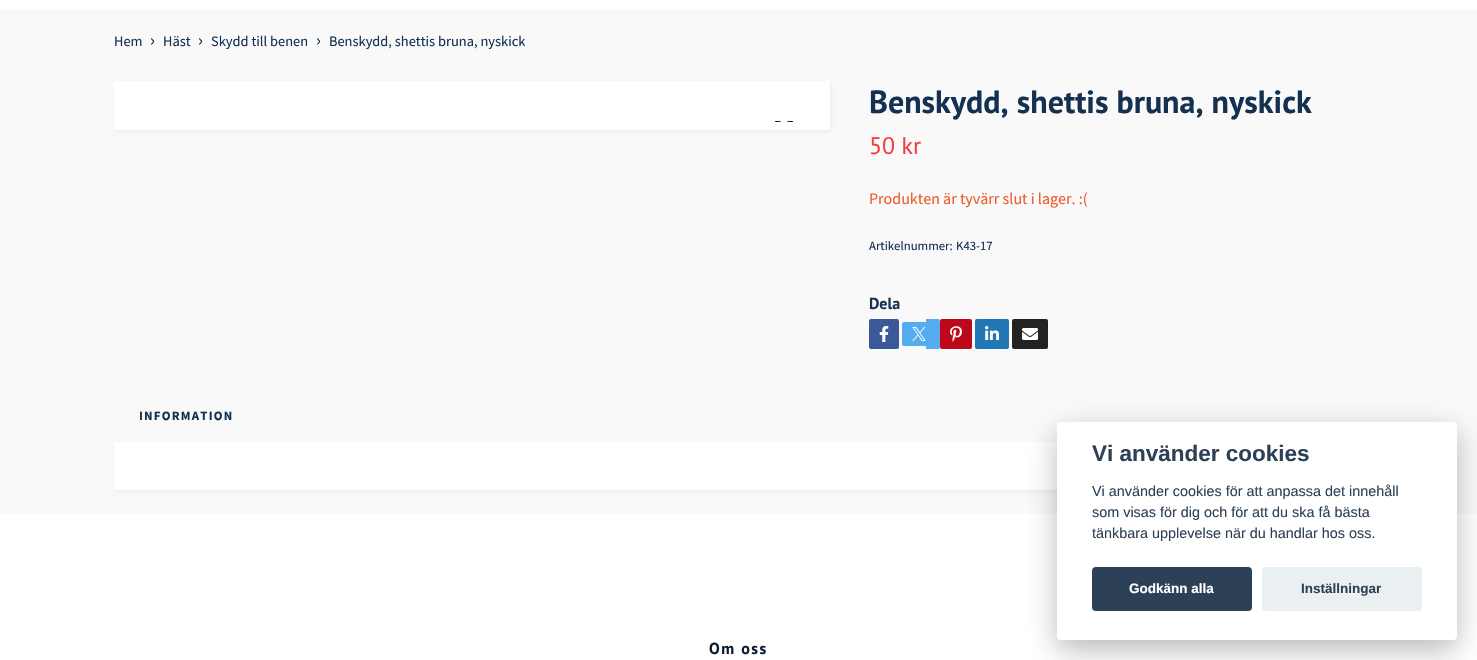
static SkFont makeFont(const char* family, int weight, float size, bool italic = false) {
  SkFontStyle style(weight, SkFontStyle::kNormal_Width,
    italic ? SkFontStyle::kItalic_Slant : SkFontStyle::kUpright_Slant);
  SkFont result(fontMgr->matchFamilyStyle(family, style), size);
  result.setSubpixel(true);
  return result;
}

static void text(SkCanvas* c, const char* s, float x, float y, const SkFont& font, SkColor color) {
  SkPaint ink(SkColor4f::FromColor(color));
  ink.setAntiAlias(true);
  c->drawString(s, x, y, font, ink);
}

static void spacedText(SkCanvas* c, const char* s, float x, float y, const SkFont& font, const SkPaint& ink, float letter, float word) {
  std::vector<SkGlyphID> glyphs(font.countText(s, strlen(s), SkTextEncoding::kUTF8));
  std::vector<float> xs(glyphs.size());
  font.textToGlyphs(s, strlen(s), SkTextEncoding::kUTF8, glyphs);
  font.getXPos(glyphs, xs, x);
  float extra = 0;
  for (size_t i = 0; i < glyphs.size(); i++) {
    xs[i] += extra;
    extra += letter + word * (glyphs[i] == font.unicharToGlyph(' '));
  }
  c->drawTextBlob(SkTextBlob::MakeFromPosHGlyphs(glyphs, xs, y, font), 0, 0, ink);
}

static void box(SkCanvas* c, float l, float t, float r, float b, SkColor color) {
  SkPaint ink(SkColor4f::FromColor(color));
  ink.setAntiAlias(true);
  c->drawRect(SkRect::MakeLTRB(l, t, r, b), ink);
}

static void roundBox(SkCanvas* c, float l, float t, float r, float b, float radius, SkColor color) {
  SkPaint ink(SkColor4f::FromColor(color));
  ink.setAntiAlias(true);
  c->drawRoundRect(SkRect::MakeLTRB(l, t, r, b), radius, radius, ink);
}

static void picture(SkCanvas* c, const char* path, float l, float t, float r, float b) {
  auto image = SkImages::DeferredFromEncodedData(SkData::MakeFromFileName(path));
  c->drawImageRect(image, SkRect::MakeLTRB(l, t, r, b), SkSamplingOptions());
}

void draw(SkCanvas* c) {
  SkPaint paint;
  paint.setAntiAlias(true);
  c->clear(0xfff9f9fa);
  box(c, 0, 0, 1477, 9, 0xffffffff);
  SkFont face1 = makeFont("Source Sans Pro", 400, 14.4f);
  text(c, "Hem", 114, 46, face1, 0xff143151);
  SkFont face2 = makeFont("Source Sans Pro", 400, 18);
  text(c, "›", 150, 46, face2, 0xff143151);
  text(c, "Häst", 163, 46, face1, 0xff143151);
  text(c, "›", 198, 46, face2, 0xff143151);
  text(c, "Skydd till benen", 211, 46, face1, 0xff143151);
  text(c, "›", 316, 46, face2, 0xff143151);
  text(c, "Benskydd, shettis bruna, nyskick", 329, 46, face1, 0xff143151);
  paint.setColor(0x0d000000);
  paint.setMaskFilter(SkMaskFilter::MakeBlur(kNormal_SkBlurStyle, 2));
  c->drawRect(SkRect::MakeLTRB(115, 83, 831, 132), paint);
  paint.setMaskFilter(nullptr);
  box(c, 114, 81, 830, 130, 0xffffffff);
  picture(c, "img_01.png", 775, 121, 793, 122);
  SkFont face3 = makeFont("PT Sans", 700, 32);
  text(c, "Benskydd, shettis bruna, nyskick", 869, 113, face3, 0xff143151);
  SkFont face4 = makeFont("PT Sans", 400, 24);
  text(c, "50 kr", 869, 154, face4, 0xfff03f3f);
  SkFont face5 = makeFont("Source Sans Pro", 400, 16);
  text(c, "Produkten är tyvärr slut i lager. :(", 869, 204, face5, 0xffef5b27);
  SkFont face6 = makeFont("Source Sans Pro", 400, 12.75f);
  text(c, "Artikelnummer:", 869, 250, face6, 0xff143151);
  text(c, "K43-17", 956, 250, face6, 0xff143151);
  SkFont face7 = makeFont("PT Sans", 700, 16);
  text(c, "Dela", 869, 309, face7, 0xff143151);
  roundBox(c, 869, 319, 899, 349, 2, 0xff3b5998);
  picture(c, "img_02.png", 879, 326, 889, 342);
  paint.setColor(0xff55acee);
  c->drawPath(SkPathBuilder().moveTo(904, 322).lineTo(926, 322).lineTo(926, 346).lineTo(904, 346).cubicTo(903, 346, 902, 345, 902, 344).lineTo(902, 324).cubicTo(902, 323, 903, 322, 904, 322).close().detach(), paint);
  c->drawPath(SkPathBuilder().moveTo(926, 319).lineTo(938, 319).cubicTo(939, 319, 940, 320, 940, 321).lineTo(940, 347).cubicTo(940, 348, 939, 349, 938, 349).lineTo(926, 349).close().detach(), paint);
  roundBox(c, 940, 319, 972, 349, 2, 0xffbd081c);
  picture(c, "img_03.png", 950, 326, 962, 342);
  roundBox(c, 975, 319, 1009, 349, 2, 0xff2177b4);
  picture(c, "img_04.png", 985, 326, 999, 340);
  roundBox(c, 1012, 319, 1048, 349, 2, 0xff222222);
  picture(c, "img_05.png", 1022, 328, 1038, 340);
  picture(c, "img_06.png", 912, 327, 926, 341);
  SkFont face8 = makeFont("Source Sans Pro", 700, 12.75f);
  paint.setColor(0xff143151);
  spacedText(c, "INFORMATION", 139, 420, face8, paint, 1.25f, 0);
  paint.setColor(0x0d000000);
  paint.setMaskFilter(SkMaskFilter::MakeBlur(kNormal_SkBlurStyle, 2));
  c->drawRect(SkRect::MakeLTRB(115, 444, 1365, 492), paint);
  paint.setMaskFilter(nullptr);
  box(c, 114, 442, 1057, 490, 0xffffffff);
  box(c, 0, 514, 1477, 660, 0xffffffff);
  paint.setColor(0x47020203);
  paint.setMaskFilter(SkMaskFilter::MakeBlur(kNormal_SkBlurStyle, 15));
  c->drawRoundRect(SkRect::MakeLTRB(1057, 432, 1457, 650), 4, 4, paint);
  paint.setMaskFilter(nullptr);
  roundBox(c, 1057, 422, 1457, 640, 4, 0xffffffff);
  SkFont face9 = makeFont("Liberation Sans", 700, 22.5f);
  text(c, "Vi använder cookies", 1092, 461, face9, 0xff2d4156);
  SkFont face10 = makeFont("Liberation Sans", 400, 14.4f);
  text(c, "Vi använder cookies för att anpassa det innehåll", 1092, 496, face10, 0xff2d4156);
  text(c, "som visas för dig och för att du ska få bästa", 1092, 517, face10, 0xff2d4156);
  text(c, "tänkbara upplevelse när du handlar hos oss.", 1092, 538, face10, 0xff2d4156);
  roundBox(c, 1092, 567, 1252, 611, 4, 0xff2d4156);
  SkFont face11 = makeFont("Liberation Sans", 700, 13.5f);
  text(c, "Godkänn alla", 1129, 593, face11, 0xffffffff);
  roundBox(c, 1262, 567, 1422, 611, 4, 0xffeaeff2);
  text(c, "Inställningar", 1301, 593, face11, 0xff2d4156);
  paint.setColor(0xff0a1d32);
  spacedText(c, "Om oss", 709, 654, face7, paint, 1.5f, 0);
}
